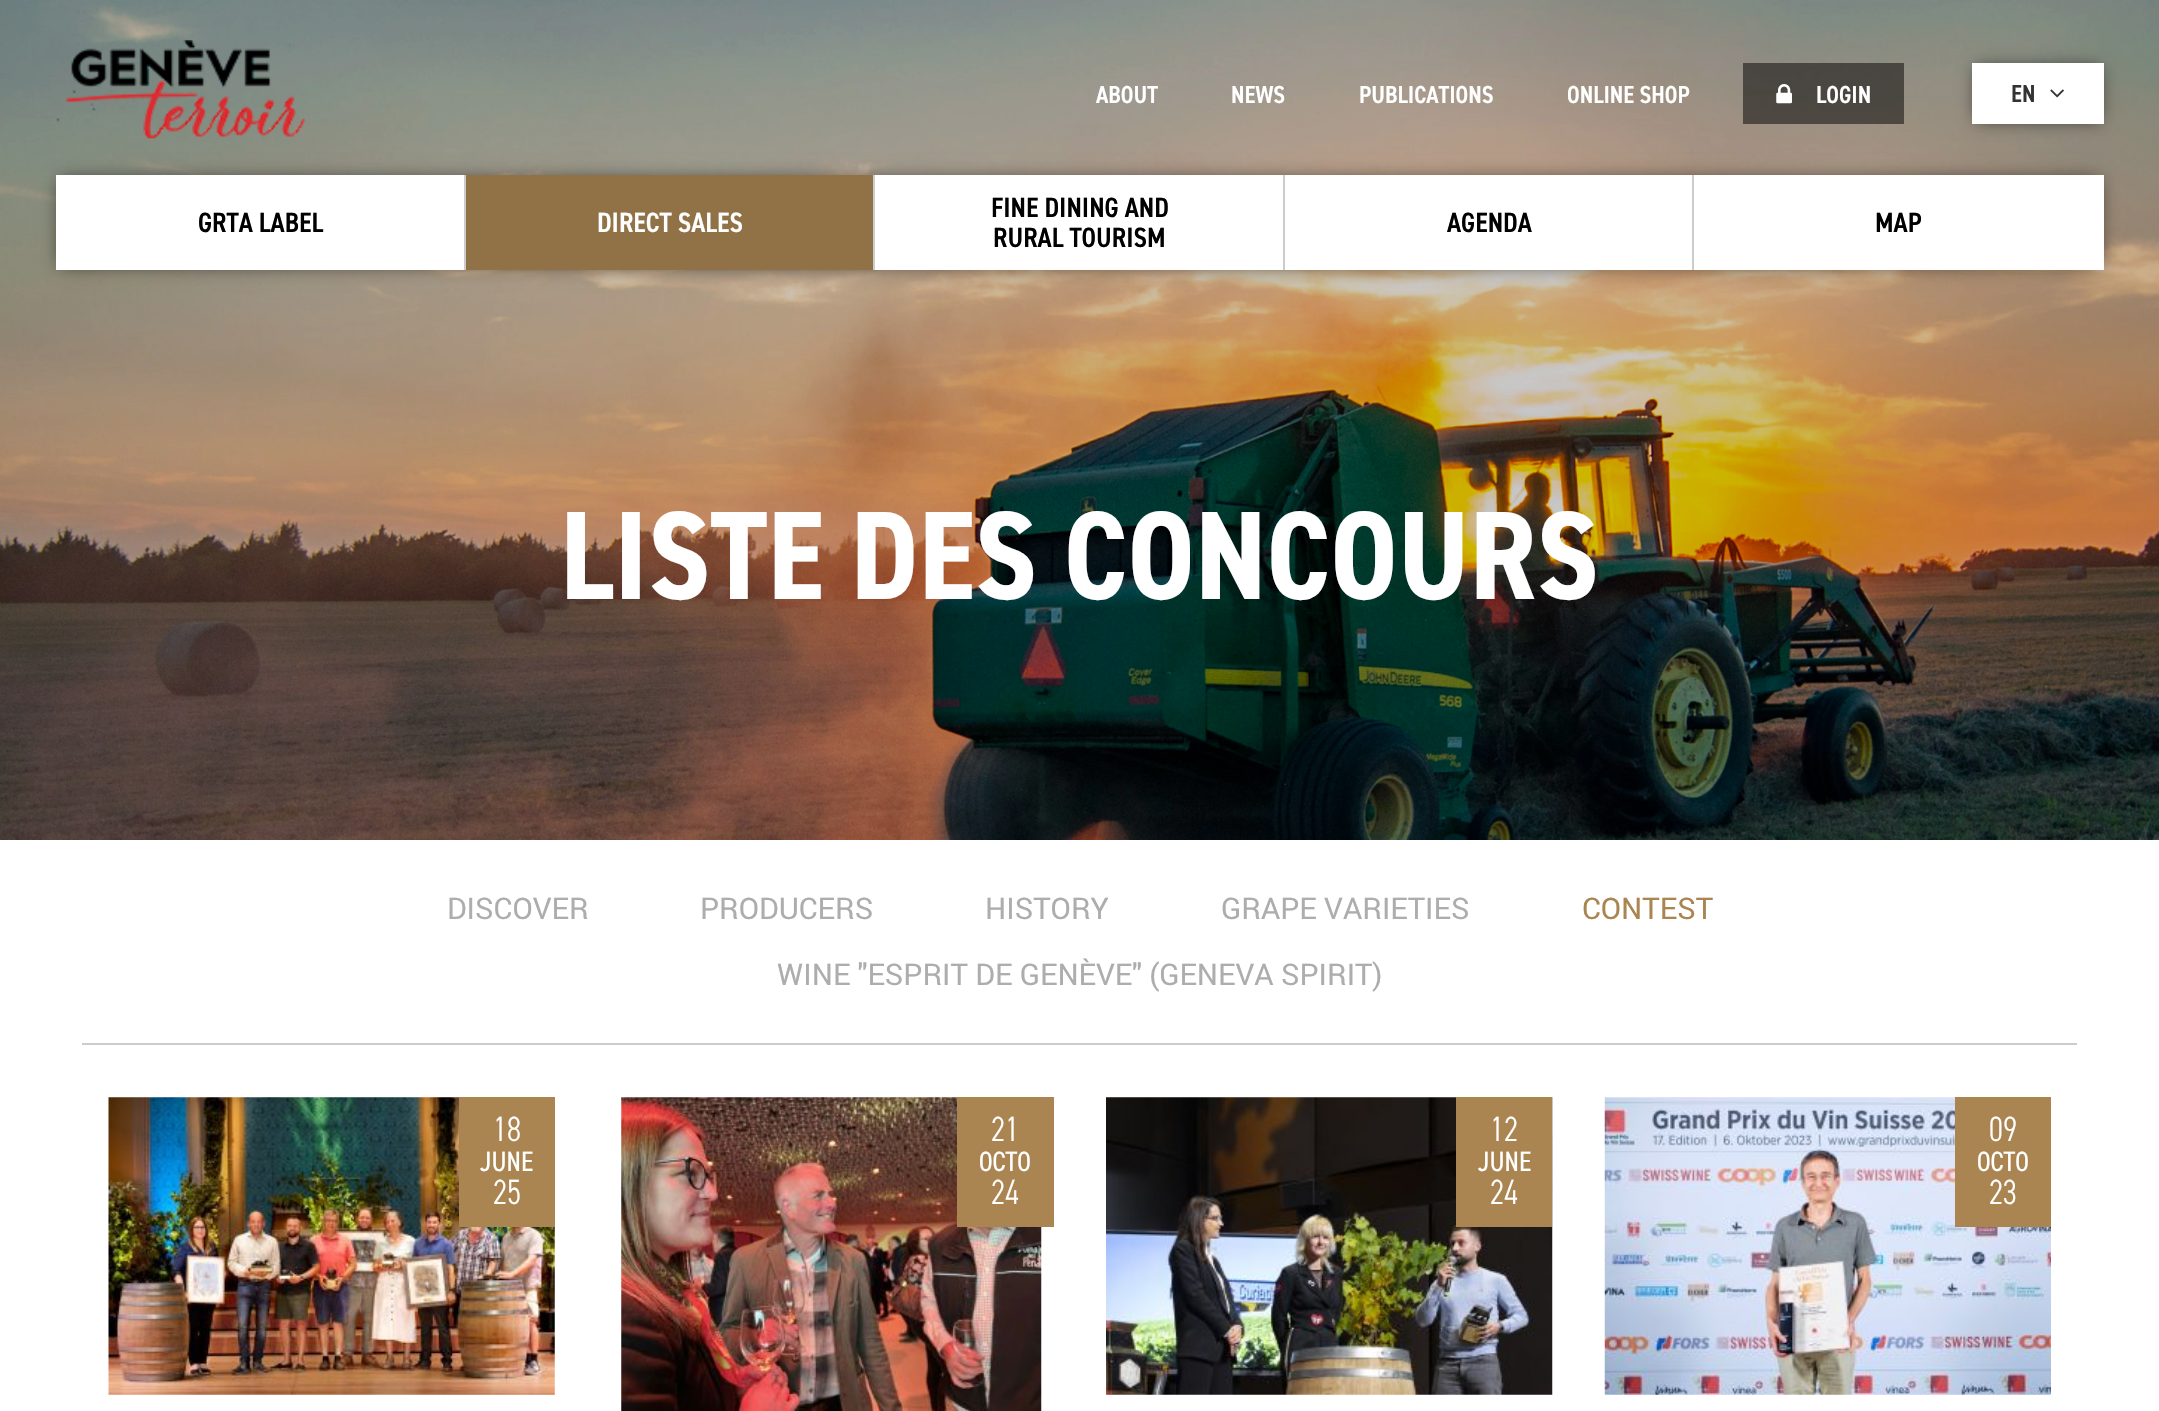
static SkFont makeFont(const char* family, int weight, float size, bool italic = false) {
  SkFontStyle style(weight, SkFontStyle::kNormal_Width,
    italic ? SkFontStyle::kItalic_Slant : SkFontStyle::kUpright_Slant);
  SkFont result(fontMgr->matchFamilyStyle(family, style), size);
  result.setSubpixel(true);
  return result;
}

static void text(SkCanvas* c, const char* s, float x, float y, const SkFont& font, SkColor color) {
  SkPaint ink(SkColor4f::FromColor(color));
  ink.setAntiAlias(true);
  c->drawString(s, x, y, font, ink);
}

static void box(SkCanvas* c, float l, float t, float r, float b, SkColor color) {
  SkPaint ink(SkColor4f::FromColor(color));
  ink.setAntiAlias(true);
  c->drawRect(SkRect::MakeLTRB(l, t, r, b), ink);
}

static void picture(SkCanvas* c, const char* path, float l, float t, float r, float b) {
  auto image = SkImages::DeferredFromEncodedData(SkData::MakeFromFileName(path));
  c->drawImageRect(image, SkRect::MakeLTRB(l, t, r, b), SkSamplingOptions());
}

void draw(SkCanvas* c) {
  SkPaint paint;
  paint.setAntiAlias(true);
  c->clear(0xffffffff);
  picture(c, "img_04.png", 0, 0, 2159, 840);
  picture(c, "img_01.png", 66, 40, 305, 139);
  SkFont face1 = makeFont("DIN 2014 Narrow", 600, 24.5f);
  text(c, "ABOUT", 1096, 103, face1, 0xffffffff);
  text(c, "NEWS", 1231, 103, face1, 0xffffffff);
  text(c, "PUBLICATIONS", 1359, 103, face1, 0xffffffff);
  text(c, "ONLINE SHOP", 1567, 103, face1, 0xffffffff);
  box(c, 1743, 63, 1904, 124, 0x80000000);
  picture(c, "img_02.png", 1776, 84, 1792, 104);
  text(c, "LOGIN", 1816, 103, face1, 0xffffffff);
  paint.setColor(0x99000000);
  paint.setMaskFilter(SkMaskFilter::MakeBlur(kNormal_SkBlurStyle, 9));
  c->drawRect(SkRect::MakeLTRB(1976, 67, 2100, 121), paint);
  paint.setMaskFilter(nullptr);
  box(c, 1972, 63, 2104, 124, 0xffffffff);
  text(c, "EN", 2011, 102, face1, 0xff333333);
  picture(c, "img_03.png", 2050, 89, 2064, 98);
  paint.setMaskFilter(SkMaskFilter::MakeBlur(kNormal_SkBlurStyle, 9));
  c->drawRect(SkRect::MakeLTRB(60, 179, 2100, 266), paint);
  paint.setMaskFilter(nullptr);
  box(c, 56, 175, 2104, 270, 0xffffffff);
  SkFont face2 = makeFont("DIN 2014 Narrow", 600, 28);
  text(c, "GRTA LABEL", 198, 232, face2, 0xff000000);
  box(c, 464, 175, 466, 270, 0xffcccccc);
  box(c, 466, 175, 873, 270, 0xff917246);
  text(c, "DIRECT SALES", 597, 232, face2, 0xffffffff);
  box(c, 873, 175, 875, 270, 0xffcccccc);
  text(c, "FINE DINING AND", 991, 217, face2, 0xff000000);
  text(c, "RURAL TOURISM", 993, 247, face2, 0xff000000);
  box(c, 1283, 175, 1285, 270, 0xffcccccc);
  text(c, "AGENDA", 1447, 232, face2, 0xff000000);
  box(c, 1692, 175, 1694, 270, 0xffcccccc);
  text(c, "MAP", 1875, 232, face2, 0xff000000);
  SkFont face3 = makeFont("DIN 2014 Narrow", 700, 126);
  text(c, "LISTE DES CONCOURS", 560, 599, face3, 0xffffffff);
  box(c, 82, 1043, 2077, 1045, 0xffcccccc);
  SkFont face4 = makeFont("Roboto", 400, 29.75f);
  text(c, "DISCOVER", 447, 919, face4, 0xffadadad);
  text(c, "PRODUCERS", 700, 919, face4, 0xffadadad);
  text(c, "HISTORY", 985, 919, face4, 0xffadadad);
  text(c, "GRAPE VARIETIES", 1221, 919, face4, 0xffadadad);
  text(c, "CONTEST", 1582, 919, face4, 0xffaa8551);
  text(c, "WINE \"ESPRIT DE GENÈVE\" (GENEVA SPIRIT)", 777, 985, face4, 0xffadadad);
  picture(c, "img_05.png", 108, 1097, 555, 1395);
  box(c, 459, 1097, 555, 1227, 0xffaa8551);
  SkFont face5 = makeFont("DIN 2014 Narrow", 300, 35);
  text(c, "18", 493, 1141, face5, 0xffffffff);
  SkFont face6 = makeFont("DIN 2014 Narrow", 400, 28);
  text(c, "JUNE", 480, 1171, face6, 0xffffffff);
  text(c, "25", 493, 1204, face5, 0xffffffff);
  picture(c, "img_06.png", 621, 1097, 1042, 1411);
  box(c, 957, 1097, 1054, 1227, 0xffaa8551);
  text(c, "21", 991, 1141, face5, 0xffffffff);
  text(c, "OCTO", 979, 1171, face6, 0xffffffff);
  text(c, "24", 991, 1204, face5, 0xffffffff);
  picture(c, "img_07.png", 1106, 1097, 1553, 1395);
  box(c, 1456, 1097, 1552, 1227, 0xffaa8551);
  text(c, "12", 1490, 1141, face5, 0xffffffff);
  text(c, "JUNE", 1478, 1171, face6, 0xffffffff);
  text(c, "24", 1490, 1204, face5, 0xffffffff);
  picture(c, "img_08.png", 1604, 1097, 2051, 1395);
  box(c, 1955, 1097, 2051, 1227, 0xffaa8551);
  text(c, "09", 1989, 1141, face5, 0xffffffff);
  text(c, "OCTO", 1977, 1171, face6, 0xffffffff);
  text(c, "23", 1989, 1204, face5, 0xffffffff);
}
